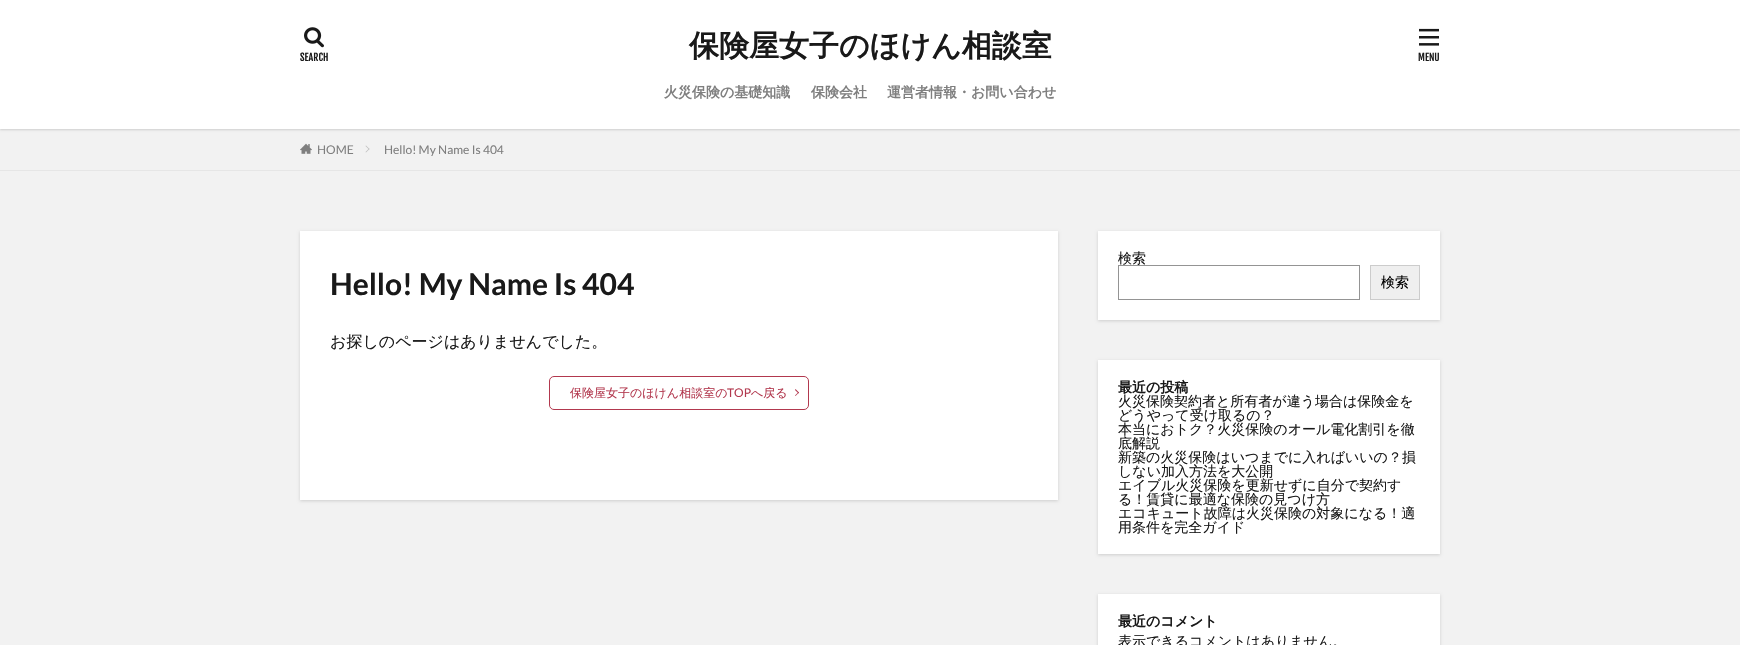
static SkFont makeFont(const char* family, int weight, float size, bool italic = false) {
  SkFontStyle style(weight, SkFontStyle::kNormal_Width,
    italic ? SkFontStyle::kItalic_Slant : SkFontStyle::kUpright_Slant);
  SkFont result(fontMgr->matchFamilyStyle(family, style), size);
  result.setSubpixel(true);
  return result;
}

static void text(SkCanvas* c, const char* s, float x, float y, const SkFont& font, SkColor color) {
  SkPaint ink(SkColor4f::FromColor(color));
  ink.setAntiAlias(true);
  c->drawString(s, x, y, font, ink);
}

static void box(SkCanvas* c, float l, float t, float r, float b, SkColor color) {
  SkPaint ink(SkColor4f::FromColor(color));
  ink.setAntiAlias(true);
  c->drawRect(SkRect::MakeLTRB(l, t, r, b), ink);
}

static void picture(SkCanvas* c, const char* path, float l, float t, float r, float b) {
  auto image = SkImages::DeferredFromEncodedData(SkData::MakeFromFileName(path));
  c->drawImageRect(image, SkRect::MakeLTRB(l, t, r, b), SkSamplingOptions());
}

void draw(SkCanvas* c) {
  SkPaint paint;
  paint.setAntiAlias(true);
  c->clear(0xfff2f2f2);
  paint.setColor(0x26000000);
  paint.setMaskFilter(SkMaskFilter::MakeBlur(kNormal_SkBlurStyle, 1));
  c->drawRect(SkRect::MakeLTRB(0, 1, 1740, 130), paint);
  paint.setMaskFilter(nullptr);
  box(c, 0, 0, 1740, 129, 0xffffffff);
  picture(c, "img_01.png", 304, 27, 324, 48);
  SkFont face1 = makeFont("Fjalla One", 400, 10);
  text(c, "SEARCH", 300, 61, face1, 0xff191919);
  SkFont face2 = makeFont("WenQuanYi Zen Hei", 700, 30);
  text(c, "保険屋女子のほけん相談室", 689, 56, face2, 0xff191919);
  picture(c, "img_02.png", 1419, 28, 1439, 46);
  text(c, "MENU", 1418, 61, face1, 0xff191919);
  SkFont face3 = makeFont("WenQuanYi Zen Hei", 700, 14);
  text(c, "火災保険の基礎知識", 664, 97, face3, 0xff7f7f7f);
  text(c, "保険会社", 811, 97, face3, 0xff7f7f7f);
  text(c, "運営者情報・お問い合わせ", 887, 97, face3, 0xff7f7f7f);
  box(c, 0, 170, 1740, 171, 0xffe6e6e6);
  picture(c, "img_03.png", 300, 143, 312, 154);
  SkFont face4 = makeFont("Lato", 400, 12);
  text(c, "HOME", 317, 154, face4, 0xff7f7f7f);
  paint.setColor(0xffbfbfbf);
  c->drawPath(SkPathBuilder().moveTo(366, 145.5f).lineTo(369.5f, 149).lineTo(369, 149.5f).lineTo(365.5f, 146).close().detach(), paint);
  c->drawPath(SkPathBuilder().moveTo(369, 148.5f).lineTo(369.5f, 149).lineTo(366, 152.5f).lineTo(365.5f, 152).close().detach(), paint);
  text(c, "Hello! My Name Is 404", 384, 154, face4, 0xff7f7f7f);
  paint.setColor(0x26000000);
  paint.setMaskFilter(SkMaskFilter::MakeBlur(kNormal_SkBlurStyle, 1.5f));
  c->drawRect(SkRect::MakeLTRB(300, 232, 1058, 501), paint);
  paint.setMaskFilter(nullptr);
  box(c, 300, 231, 1058, 500, 0xffffffff);
  SkFont face5 = makeFont("Lato", 700, 30);
  text(c, "Hello! My Name Is 404", 330, 295, face5, 0xff191919);
  SkFont face6 = makeFont("WenQuanYi Zen Hei", 500, 16);
  text(c, "お探しのページはありませんでした。", 330, 347, face6, 0xff191919);
  paint.setStyle(SkPaint::kStroke_Style);
  paint.setStrokeWidth(1);
  paint.setColor(0xffb2384e);
  c->drawRoundRect(SkRect::MakeLTRB(549.5f, 376.5f, 808.5f, 409.5f), 4.5f, 4.5f, paint);
  SkFont face7 = makeFont("WenQuanYi Zen Hei", 500, 12);
  text(c, "保険屋女子のほけん相談室の", 570, 397, face7, 0xffb2384e);
  text(c, "TOP", 727, 397, face4, 0xffb2384e);
  text(c, "へ戻る", 751, 397, face7, 0xffb2384e);
  paint.setStyle(SkPaint::kFill_Style);
  c->drawPath(SkPathBuilder().moveTo(795.5f, 389).lineTo(799, 392.5f).lineTo(798.5f, 393.5f).lineTo(795, 390).close().detach(), paint);
  c->drawPath(SkPathBuilder().moveTo(798.5f, 392).lineTo(799, 392.5f).lineTo(795.5f, 396).lineTo(795, 395.5f).close().detach(), paint);
  paint.setColor(0x26000000);
  paint.setMaskFilter(SkMaskFilter::MakeBlur(kNormal_SkBlurStyle, 1.5f));
  c->drawRect(SkRect::MakeLTRB(1098, 232, 1440, 321), paint);
  paint.setMaskFilter(nullptr);
  box(c, 1098, 231, 1440, 320, 0xffffffff);
  SkFont face8 = makeFont("WenQuanYi Zen Hei", 500, 14);
  text(c, "検索", 1118, 263, face8, 0xff191919);
  paint.setStyle(SkPaint::kStroke_Style);
  paint.setColor(0xff949494);
  c->drawRect(SkRect::MakeLTRB(1118.5f, 265.5f, 1359.5f, 299.5f), paint);
  paint.setStyle(SkPaint::kFill_Style);
  paint.setColor(0xffefefef);
  c->drawRect(SkRect::MakeLTRB(1370.5f, 265.5f, 1419.5f, 299.5f), paint);
  paint.setStyle(SkPaint::kStroke_Style);
  paint.setColor(0xffcccccc);
  c->drawRect(SkRect::MakeLTRB(1370.5f, 265.5f, 1419.5f, 299.5f), paint);
  text(c, "検索", 1381, 287, face8, 0xff000000);
  paint.setStyle(SkPaint::kFill_Style);
  paint.setColor(0x26000000);
  paint.setMaskFilter(SkMaskFilter::MakeBlur(kNormal_SkBlurStyle, 1.5f));
  c->drawRect(SkRect::MakeLTRB(1098, 361, 1440, 555), paint);
  paint.setMaskFilter(nullptr);
  box(c, 1098, 360, 1440, 554, 0xffffffff);
  text(c, "最近の投稿", 1118, 392, face3, 0xff191919);
  text(c, "火災保険契約者と所有者が違う場合は保険金を", 1118, 406, face8, 0xff191919);
  text(c, "どうやって受け取るの？", 1118, 420, face8, 0xff191919);
  text(c, "本当におトク？火災保険のオール電化割引を徹", 1118, 434, face8, 0xff191919);
  text(c, "底解説", 1118, 448, face8, 0xff191919);
  text(c, "新築の火災保険はいつまでに入ればいいの？損", 1118, 462, face8, 0xff191919);
  text(c, "しない加入方法を大公開", 1118, 476, face8, 0xff191919);
  text(c, "エイブル火災保険を更新せずに自分で契約す", 1118, 490, face8, 0xff191919);
  text(c, "る！賃貸に最適な保険の見つけ方", 1118, 504, face8, 0xff191919);
  text(c, "エコキュート故障は火災保険の対象になる！適", 1118, 518, face8, 0xff191919);
  text(c, "用条件を完全ガイド", 1118, 532, face8, 0xff191919);
  paint.setMaskFilter(SkMaskFilter::MakeBlur(kNormal_SkBlurStyle, 1.5f));
  c->drawRect(SkRect::MakeLTRB(1098, 595, 1440, 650), paint);
  paint.setMaskFilter(nullptr);
  box(c, 1098, 594, 1440, 645, 0xffffffff);
  text(c, "最近のコメント", 1118, 626, face3, 0xff191919);
  text(c, "表示できるコメントはありません。", 1118, 646, face8, 0xff191919);
}
